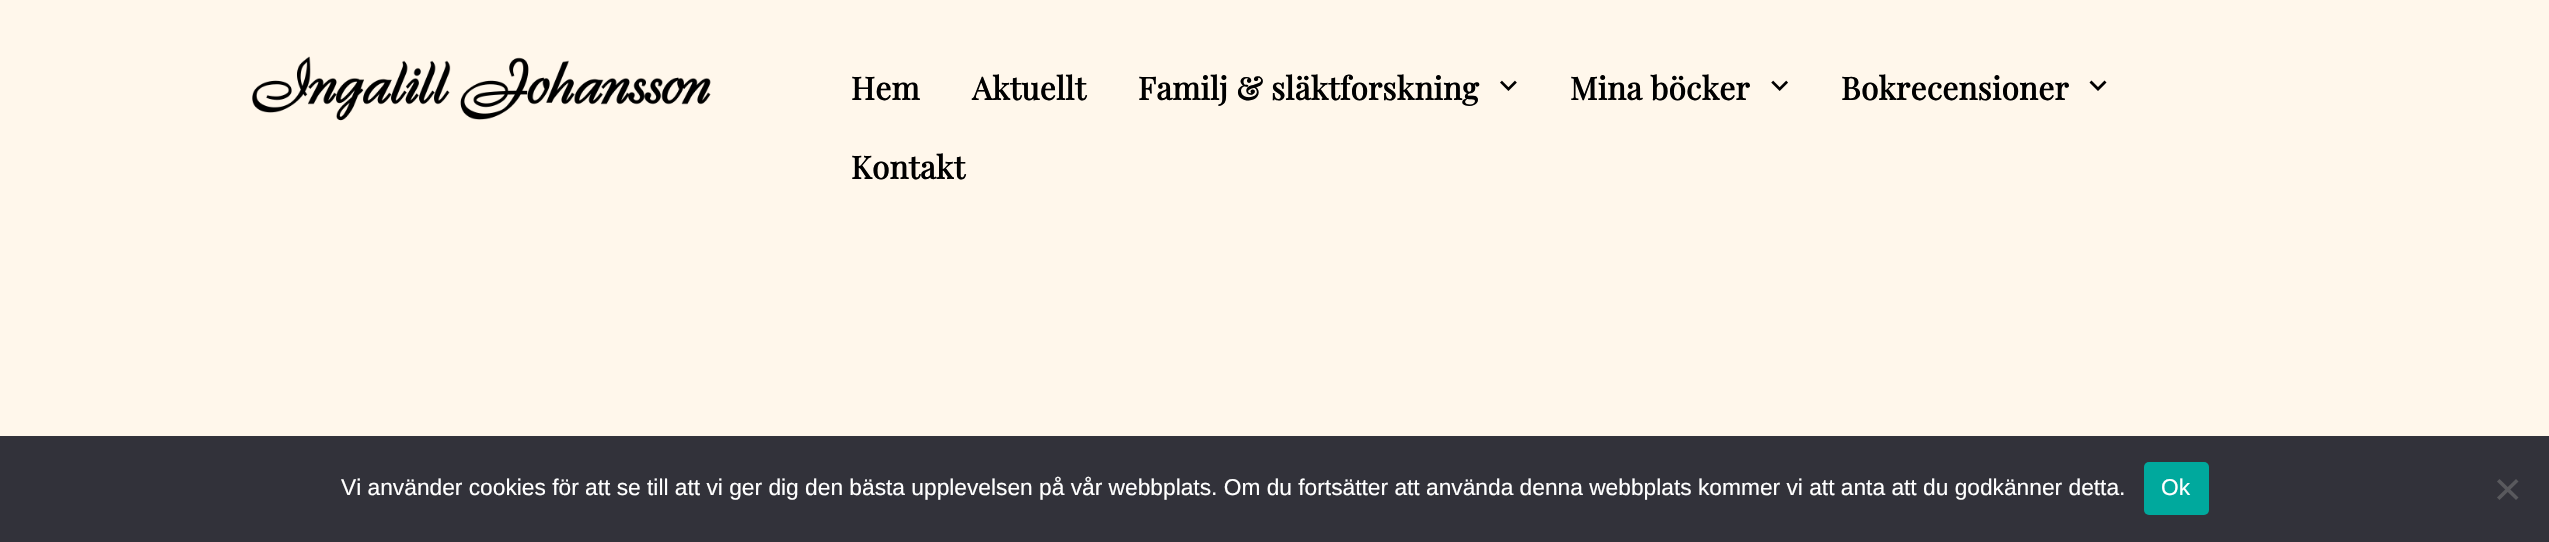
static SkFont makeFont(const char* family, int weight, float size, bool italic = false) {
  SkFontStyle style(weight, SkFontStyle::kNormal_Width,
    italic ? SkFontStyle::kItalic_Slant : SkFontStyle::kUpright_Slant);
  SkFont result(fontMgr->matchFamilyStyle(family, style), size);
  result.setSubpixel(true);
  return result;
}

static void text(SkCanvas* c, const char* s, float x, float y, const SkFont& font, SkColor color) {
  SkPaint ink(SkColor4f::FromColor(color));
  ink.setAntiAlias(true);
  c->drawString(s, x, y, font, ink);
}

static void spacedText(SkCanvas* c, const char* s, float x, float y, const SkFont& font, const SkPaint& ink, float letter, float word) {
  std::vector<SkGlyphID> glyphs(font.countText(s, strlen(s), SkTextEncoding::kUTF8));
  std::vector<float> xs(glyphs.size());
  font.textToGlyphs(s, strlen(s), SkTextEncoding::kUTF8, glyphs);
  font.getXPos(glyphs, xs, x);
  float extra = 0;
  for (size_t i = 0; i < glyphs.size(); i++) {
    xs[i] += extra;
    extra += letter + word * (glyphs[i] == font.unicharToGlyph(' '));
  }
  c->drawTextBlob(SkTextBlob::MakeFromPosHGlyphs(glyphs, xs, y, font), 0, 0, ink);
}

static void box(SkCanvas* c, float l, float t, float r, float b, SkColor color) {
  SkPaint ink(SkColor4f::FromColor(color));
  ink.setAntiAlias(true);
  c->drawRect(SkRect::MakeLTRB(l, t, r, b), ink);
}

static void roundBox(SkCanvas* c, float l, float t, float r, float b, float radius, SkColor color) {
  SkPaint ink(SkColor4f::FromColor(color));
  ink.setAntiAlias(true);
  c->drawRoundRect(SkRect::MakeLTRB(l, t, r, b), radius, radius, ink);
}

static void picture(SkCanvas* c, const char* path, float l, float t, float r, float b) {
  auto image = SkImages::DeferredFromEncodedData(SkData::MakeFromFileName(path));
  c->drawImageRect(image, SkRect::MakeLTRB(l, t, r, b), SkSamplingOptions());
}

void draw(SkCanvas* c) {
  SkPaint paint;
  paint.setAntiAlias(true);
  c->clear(0xfffff7eb);
  picture(c, "img_01.png", 252, 56, 711, 121);
  SkFont face1 = makeFont("Playfair Display", 700, 31.5f);
  paint.setColor(0xff000000);
  spacedText(c, "Hem", 851, 100, face1, paint, 0.3f, 0);
  spacedText(c, "Aktuellt", 972, 100, face1, paint, 0.3f, 0);
  spacedText(c, "Familj & släktforskning", 1138, 100, face1, paint, 0.3f, 0);
  picture(c, "img_02.png", 1500, 80, 1517, 91);
  spacedText(c, "Mina böcker", 1570, 100, face1, paint, 0.3f, 0);
  picture(c, "img_03.png", 1771, 80, 1788, 91);
  spacedText(c, "Bokrecensioner", 1841, 100, face1, paint, 0.3f, 0);
  c->drawPath(SkPathBuilder().moveTo(2091.5f, 80.5f).lineTo(2089.5f, 82.5f).lineTo(2098, 91).lineTo(2106.5f, 82.5f).lineTo(2104.5f, 80.5f).lineTo(2098, 87).close().detach(), paint);
  spacedText(c, "Kontakt", 851, 179, face1, paint, 0.3f, 0);
  box(c, 0, 436, 2549, 542, 0xff32323a);
  SkFont face2 = makeFont("Liberation Sans", 400, 22.75f);
  text(c, "Vi använder cookies för att se till att vi ger dig den bästa upplevelsen på vår webbplats. Om du fortsätter att använda denna webbplats kommer vi att anta att du godkänner detta.", 341, 495, face2, 0xffffffff);
  roundBox(c, 2144, 462, 2209, 515, 5, 0xff00a99d);
  text(c, "Ok", 2161, 495, face2, 0xffffffff);
  paint.setColor(0xff59595d);
  c->drawPath(SkPathBuilder().moveTo(2516, 479).lineTo(2518.5f, 481.5f).lineTo(2499.5f, 500).lineTo(2497, 497.5f).close().detach(), paint);
  c->drawPath(SkPathBuilder().moveTo(2497, 481.5f).lineTo(2499.5f, 479).lineTo(2518.5f, 497.5f).lineTo(2516, 500).close().detach(), paint);
}
